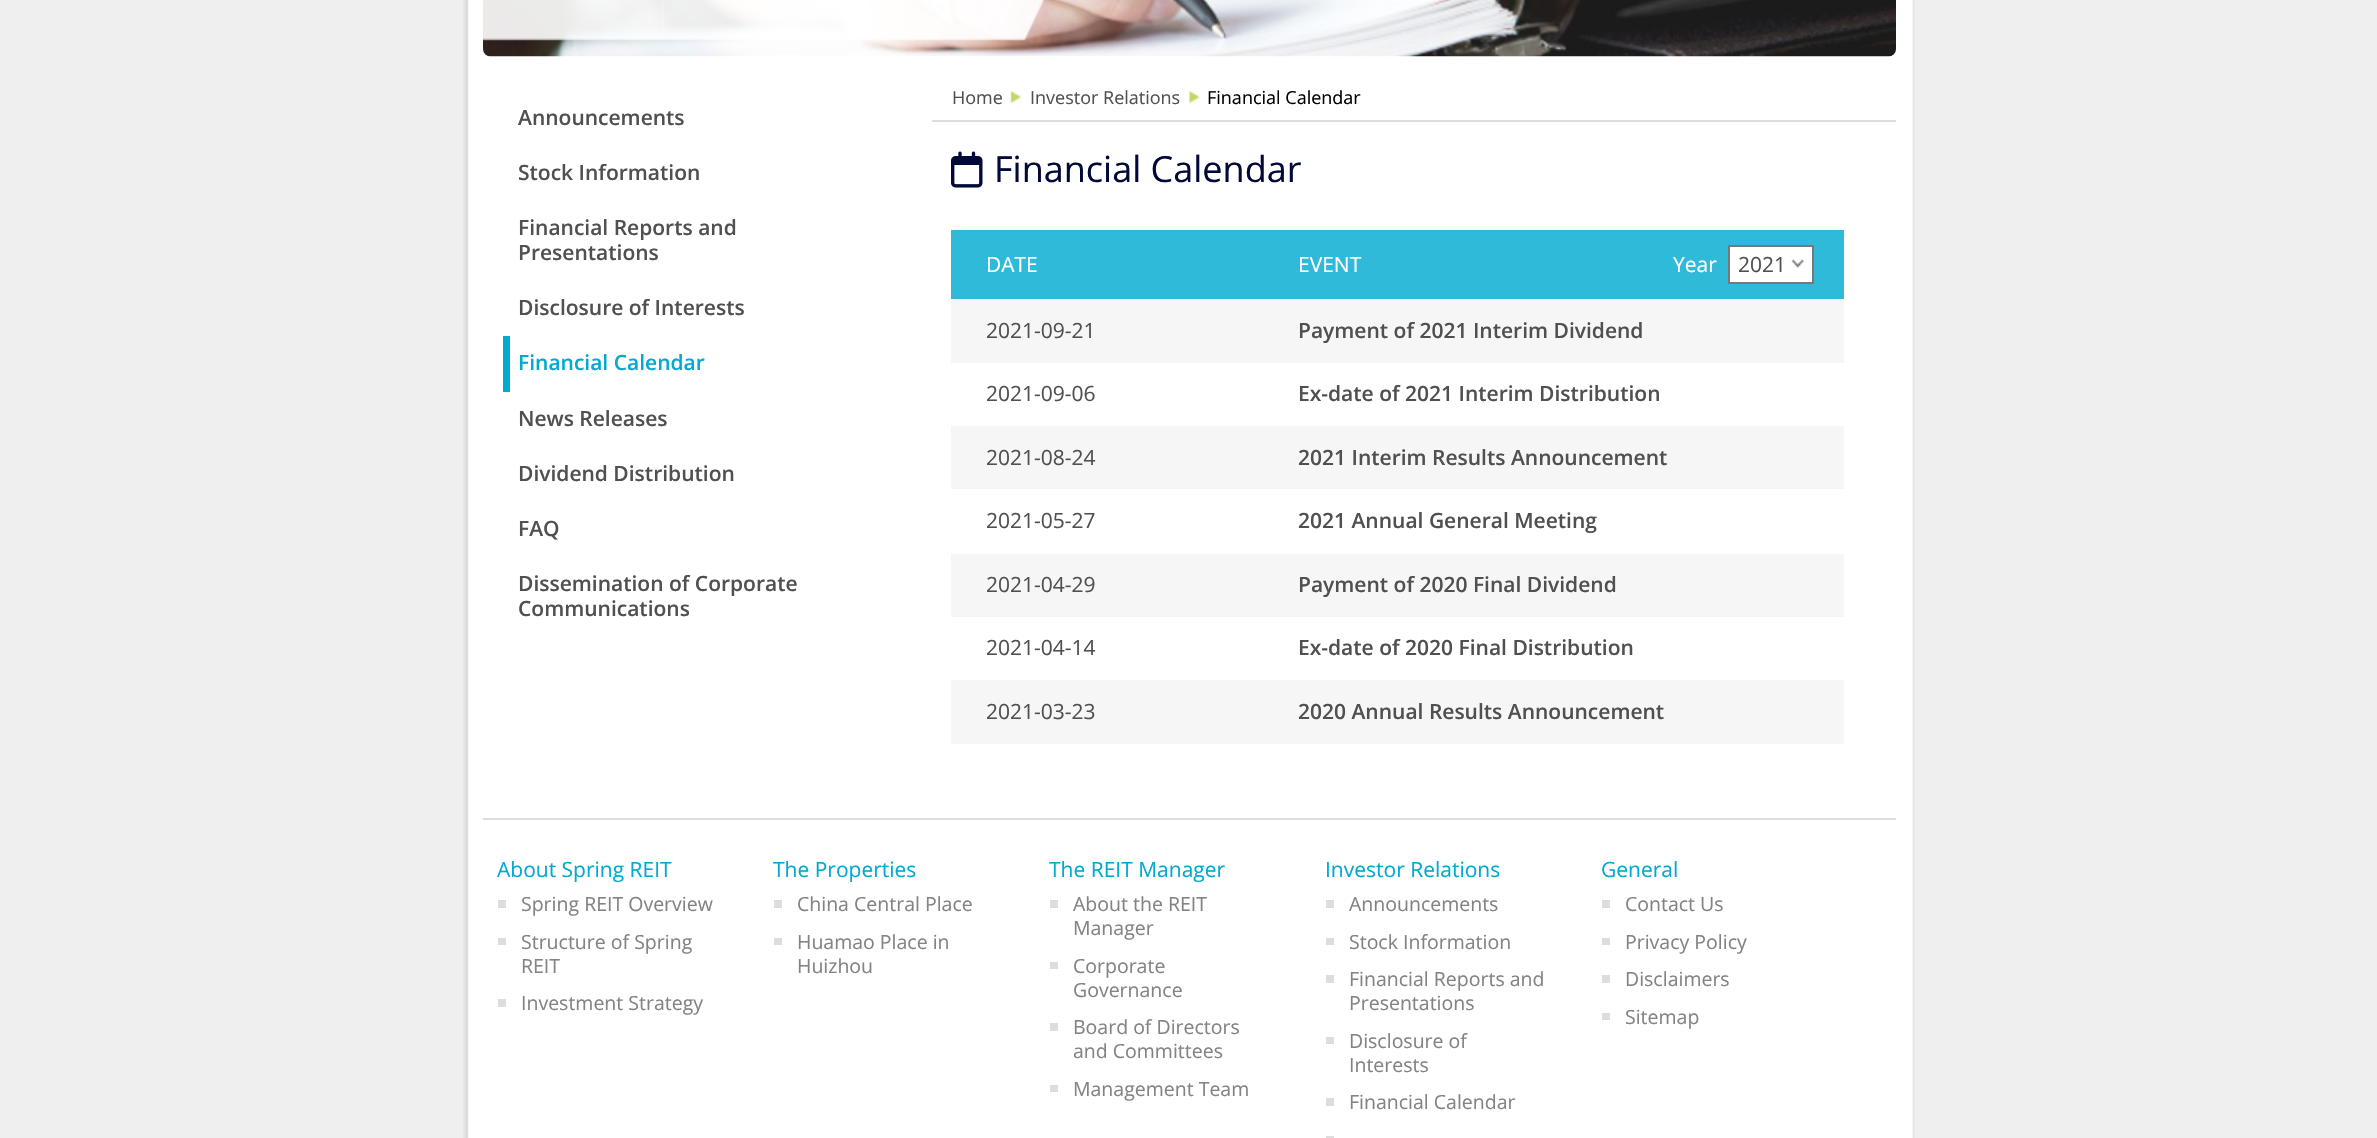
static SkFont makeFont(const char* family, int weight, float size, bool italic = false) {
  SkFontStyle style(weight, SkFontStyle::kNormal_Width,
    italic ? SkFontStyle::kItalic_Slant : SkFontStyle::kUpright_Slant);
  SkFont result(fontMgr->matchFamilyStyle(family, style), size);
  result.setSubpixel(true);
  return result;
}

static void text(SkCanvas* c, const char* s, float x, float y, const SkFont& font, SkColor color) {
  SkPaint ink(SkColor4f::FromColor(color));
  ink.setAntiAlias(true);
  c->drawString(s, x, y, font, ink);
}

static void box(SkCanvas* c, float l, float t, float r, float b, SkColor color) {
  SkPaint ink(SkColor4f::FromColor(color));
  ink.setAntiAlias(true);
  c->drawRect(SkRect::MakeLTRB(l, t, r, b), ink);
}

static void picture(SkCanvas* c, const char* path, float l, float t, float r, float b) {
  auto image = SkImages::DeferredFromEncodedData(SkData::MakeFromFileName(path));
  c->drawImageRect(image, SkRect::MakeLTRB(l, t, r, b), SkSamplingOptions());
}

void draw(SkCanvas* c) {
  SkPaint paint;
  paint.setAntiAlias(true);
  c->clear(0xffefefef);
  picture(c, "img_01.png", 463, 0, 1915, 1138);
  picture(c, "img_02.png", 483, 0, 1896, 57);
  picture(c, "img_03.png", 483, 0, 1045, 41);
  box(c, 932, 120, 1896, 122, 0xffdddddd);
  SkFont face1 = makeFont("Open Sans", 400, 18);
  text(c, "Home", 952, 104, face1, 0xff505050);
  picture(c, "img_04.png", 1009, 90, 1022, 104);
  text(c, "Investor Relations", 1030, 104, face1, 0xff505050);
  picture(c, "img_05.png", 1188, 90, 1200, 104);
  text(c, "Financial Calendar", 1207, 104, face1, 0xff000000);
  SkFont face2 = makeFont("Open Sans", 600, 21);
  text(c, "Announcements", 518, 125, face2, 0xff505050);
  text(c, "Stock Information", 518, 180, face2, 0xff505050);
  text(c, "Financial Reports and", 518, 235, face2, 0xff505050);
  text(c, "Presentations", 518, 260, face2, 0xff505050);
  text(c, "Disclosure of Interests", 518, 315, face2, 0xff505050);
  paint.setColor(0xff00aad1);
  c->drawPath(SkPathBuilder().moveTo(503, 336).lineTo(503, 392).lineTo(842, 392).lineTo(510, 392).lineTo(510, 336).close().detach(), paint);
  text(c, "Financial Calendar", 518, 370, face2, 0xff00aad1);
  text(c, "News Releases", 518, 426, face2, 0xff505050);
  text(c, "Dividend Distribution", 518, 481, face2, 0xff505050);
  text(c, "FAQ", 518, 536, face2, 0xff505050);
  text(c, "Dissemination of Corporate", 518, 591, face2, 0xff505050);
  text(c, "Communications", 518, 616, face2, 0xff505050);
  picture(c, "img_06.png", 951, 151, 983, 188);
  SkFont face3 = makeFont("Open Sans", 400, 36);
  text(c, "Financial Calendar", 994, 182, face3, 0xff000937);
  box(c, 951, 230, 1844, 299, 0xff30bada);
  SkFont face4 = makeFont("Open Sans", 400, 21);
  text(c, "DATE", 986, 272, face4, 0xffffffff);
  text(c, "EVENT", 1298, 272, face4, 0xffffffff);
  text(c, "Year", 1673, 272, face4, 0xffffffff);
  box(c, 1730, 247, 1812, 282, 0xffffffff);
  picture(c, "img_07.png", 1791, 259, 1805, 269);
  paint.setStyle(SkPaint::kStroke_Style);
  paint.setStrokeWidth(2);
  paint.setColor(0xff777979);
  c->drawRect(SkRect::MakeLTRB(1729, 246, 1813, 283), paint);
  text(c, "2021", 1738, 272, face4, 0xff505050);
  box(c, 951, 299, 1844, 363, 0xfff6f6f6);
  text(c, "2021-09-21", 986, 338, face4, 0xff505050);
  text(c, "Payment of 2021 Interim Dividend", 1298, 338, face2, 0xff505050);
  text(c, "2021-09-06", 986, 401, face4, 0xff505050);
  text(c, "Ex-date of 2021 Interim Distribution", 1298, 401, face2, 0xff505050);
  box(c, 951, 426, 1844, 489, 0xfff6f6f6);
  text(c, "2021-08-24", 986, 465, face4, 0xff505050);
  text(c, "2021 Interim Results Announcement", 1298, 465, face2, 0xff505050);
  text(c, "2021-05-27", 986, 528, face4, 0xff505050);
  text(c, "2021 Annual General Meeting", 1298, 528, face2, 0xff505050);
  box(c, 951, 554, 1844, 617, 0xfff6f6f6);
  text(c, "2021-04-29", 986, 592, face4, 0xff505050);
  text(c, "Payment of 2020 Final Dividend", 1298, 592, face2, 0xff505050);
  text(c, "2021-04-14", 986, 655, face4, 0xff505050);
  text(c, "Ex-date of 2020 Final Distribution", 1298, 655, face2, 0xff505050);
  box(c, 951, 680, 1844, 744, 0xfff6f6f6);
  text(c, "2021-03-23", 986, 719, face4, 0xff505050);
  text(c, "2020 Annual Results Announcement", 1298, 719, face2, 0xff505050);
  box(c, 483, 818, 1896, 820, 0xffdddddd);
  text(c, "About Spring REIT", 497, 877, face4, 0xff00aad1);
  box(c, 498, 900, 506, 908, 0xffdddddd);
  SkFont face5 = makeFont("Open Sans", 400, 19.5f);
  text(c, "Spring REIT Overview", 521, 911, face5, 0xff848383);
  box(c, 498, 938, 506, 945, 0xffdddddd);
  text(c, "Structure of Spring", 521, 949, face5, 0xff848383);
  text(c, "REIT", 521, 973, face5, 0xff848383);
  box(c, 498, 999, 506, 1007, 0xffdddddd);
  text(c, "Investment Strategy", 521, 1010, face5, 0xff848383);
  text(c, "The Properties", 773, 877, face4, 0xff00aad1);
  box(c, 774, 900, 782, 908, 0xffdddddd);
  text(c, "China Central Place", 797, 911, face5, 0xff848383);
  box(c, 774, 938, 782, 945, 0xffdddddd);
  text(c, "Huamao Place in", 797, 949, face5, 0xff848383);
  text(c, "Huizhou", 797, 973, face5, 0xff848383);
  text(c, "The REIT Manager", 1049, 877, face4, 0xff00aad1);
  box(c, 1050, 900, 1058, 908, 0xffdddddd);
  text(c, "About the REIT", 1073, 911, face5, 0xff848383);
  text(c, "Manager", 1073, 935, face5, 0xff848383);
  box(c, 1050, 962, 1058, 969, 0xffdddddd);
  text(c, "Corporate", 1073, 973, face5, 0xff848383);
  text(c, "Governance", 1073, 997, face5, 0xff848383);
  box(c, 1050, 1023, 1058, 1031, 0xffdddddd);
  text(c, "Board of Directors", 1073, 1034, face5, 0xff848383);
  text(c, "and Committees", 1073, 1058, face5, 0xff848383);
  box(c, 1050, 1085, 1058, 1092, 0xffdddddd);
  text(c, "Management Team", 1073, 1096, face5, 0xff848383);
  text(c, "Investor Relations", 1325, 877, face4, 0xff00aad1);
  box(c, 1326, 900, 1334, 908, 0xffdddddd);
  text(c, "Announcements", 1349, 911, face5, 0xff848383);
  box(c, 1326, 938, 1334, 945, 0xffdddddd);
  text(c, "Stock Information", 1349, 949, face5, 0xff848383);
  box(c, 1326, 975, 1334, 983, 0xffdddddd);
  text(c, "Financial Reports and", 1349, 986, face5, 0xff848383);
  text(c, "Presentations", 1349, 1010, face5, 0xff848383);
  box(c, 1326, 1037, 1334, 1044, 0xffdddddd);
  text(c, "Disclosure of", 1349, 1048, face5, 0xff848383);
  text(c, "Interests", 1349, 1072, face5, 0xff848383);
  box(c, 1326, 1098, 1334, 1106, 0xffdddddd);
  text(c, "Financial Calendar", 1349, 1109, face5, 0xff848383);
  box(c, 1326, 1136, 1334, 1138, 0xffdddddd);
  text(c, "General", 1601, 877, face4, 0xff00aad1);
  box(c, 1602, 900, 1610, 908, 0xffdddddd);
  text(c, "Contact Us", 1625, 911, face5, 0xff848383);
  box(c, 1602, 938, 1610, 945, 0xffdddddd);
  text(c, "Privacy Policy", 1625, 949, face5, 0xff848383);
  box(c, 1602, 975, 1610, 983, 0xffdddddd);
  text(c, "Disclaimers", 1625, 986, face5, 0xff848383);
  box(c, 1602, 1013, 1610, 1020, 0xffdddddd);
  text(c, "Sitemap", 1625, 1024, face5, 0xff848383);
}
